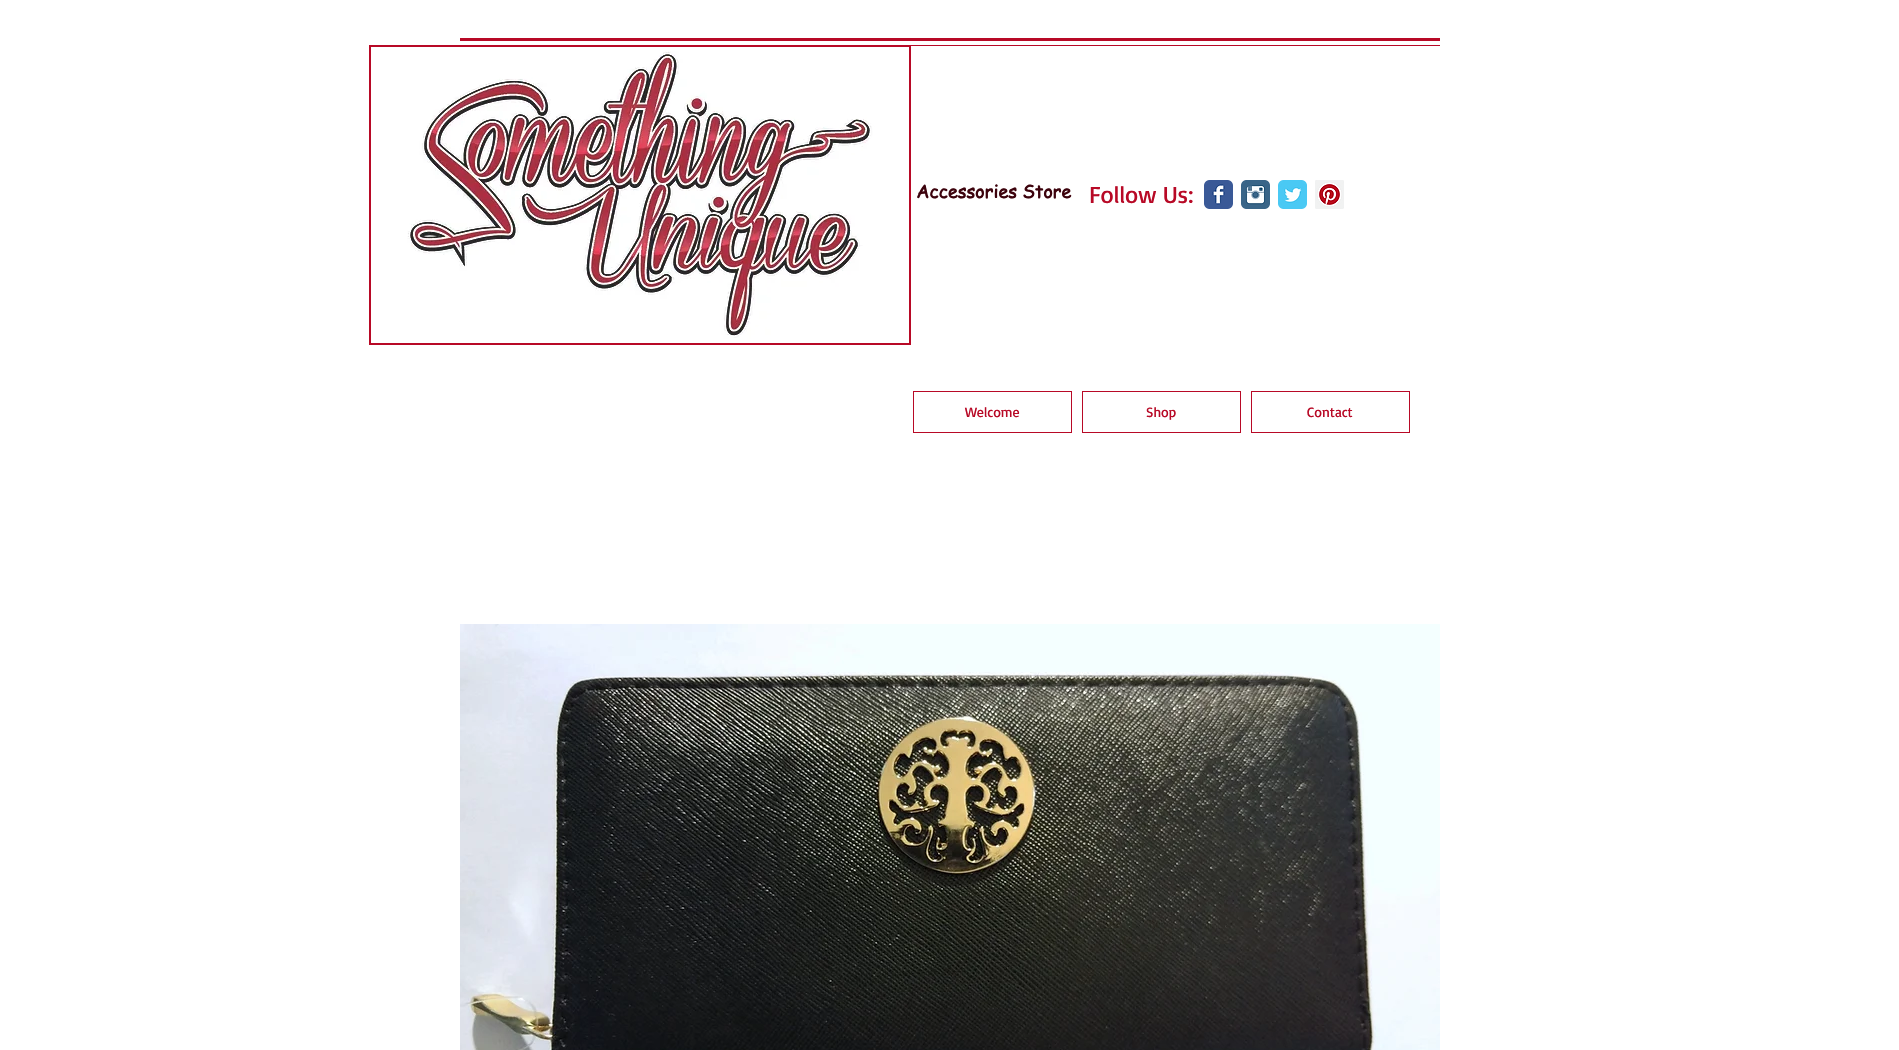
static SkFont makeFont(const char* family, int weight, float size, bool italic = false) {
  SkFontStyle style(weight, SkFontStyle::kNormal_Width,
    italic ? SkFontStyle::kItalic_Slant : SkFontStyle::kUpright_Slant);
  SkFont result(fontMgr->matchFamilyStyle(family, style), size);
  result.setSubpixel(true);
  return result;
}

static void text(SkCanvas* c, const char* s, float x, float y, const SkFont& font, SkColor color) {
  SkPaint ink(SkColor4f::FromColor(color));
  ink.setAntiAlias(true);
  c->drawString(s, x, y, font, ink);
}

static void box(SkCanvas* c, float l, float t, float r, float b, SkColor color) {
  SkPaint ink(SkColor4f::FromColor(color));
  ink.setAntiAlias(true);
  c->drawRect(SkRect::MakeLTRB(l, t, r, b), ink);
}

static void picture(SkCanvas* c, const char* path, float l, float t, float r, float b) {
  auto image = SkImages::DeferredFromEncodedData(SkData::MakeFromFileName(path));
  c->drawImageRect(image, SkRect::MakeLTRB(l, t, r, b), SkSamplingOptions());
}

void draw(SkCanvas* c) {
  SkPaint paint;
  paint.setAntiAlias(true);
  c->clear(0xffffffff);
  box(c, 369, 45, 911, 345, 0xffb80926);
  picture(c, "img_01.png", 371, 47, 909, 343);
  box(c, 460, 38, 1440, 41, 0xffb80926);
  box(c, 911, 45, 1440, 46, 0xffb80926);
  SkFont face1 = makeFont("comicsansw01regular", 700, 18);
  text(c, "Accessories Store", 916, 198, face1, 0xff3d030d);
  SkFont face2 = makeFont("Basic", 400, 24);
  text(c, "Follow Us:", 1089, 203, face2, 0xffb80926);
  picture(c, "img_02.png", 1204, 180, 1233, 209);
  picture(c, "img_03.png", 1241, 180, 1270, 209);
  picture(c, "img_04.png", 1278, 180, 1307, 209);
  picture(c, "img_05.png", 1315, 180, 1344, 209);
  paint.setStyle(SkPaint::kStroke_Style);
  paint.setStrokeWidth(1);
  paint.setColor(0xffb80926);
  c->drawRect(SkRect::MakeLTRB(913.5f, 391.5f, 1071.5f, 432.5f), paint);
  SkFont face3 = makeFont("Basic", 400, 14);
  text(c, "Welcome", 965, 417, face3, 0xffb80926);
  c->drawRect(SkRect::MakeLTRB(1082.5f, 391.5f, 1240.5f, 432.5f), paint);
  text(c, "Shop", 1146, 417, face3, 0xffb80926);
  c->drawRect(SkRect::MakeLTRB(1251.5f, 391.5f, 1409.5f, 432.5f), paint);
  text(c, "Contact", 1307, 417, face3, 0xffb80926);
  picture(c, "img_06.png", 460, 624, 1440, 1050);
}
